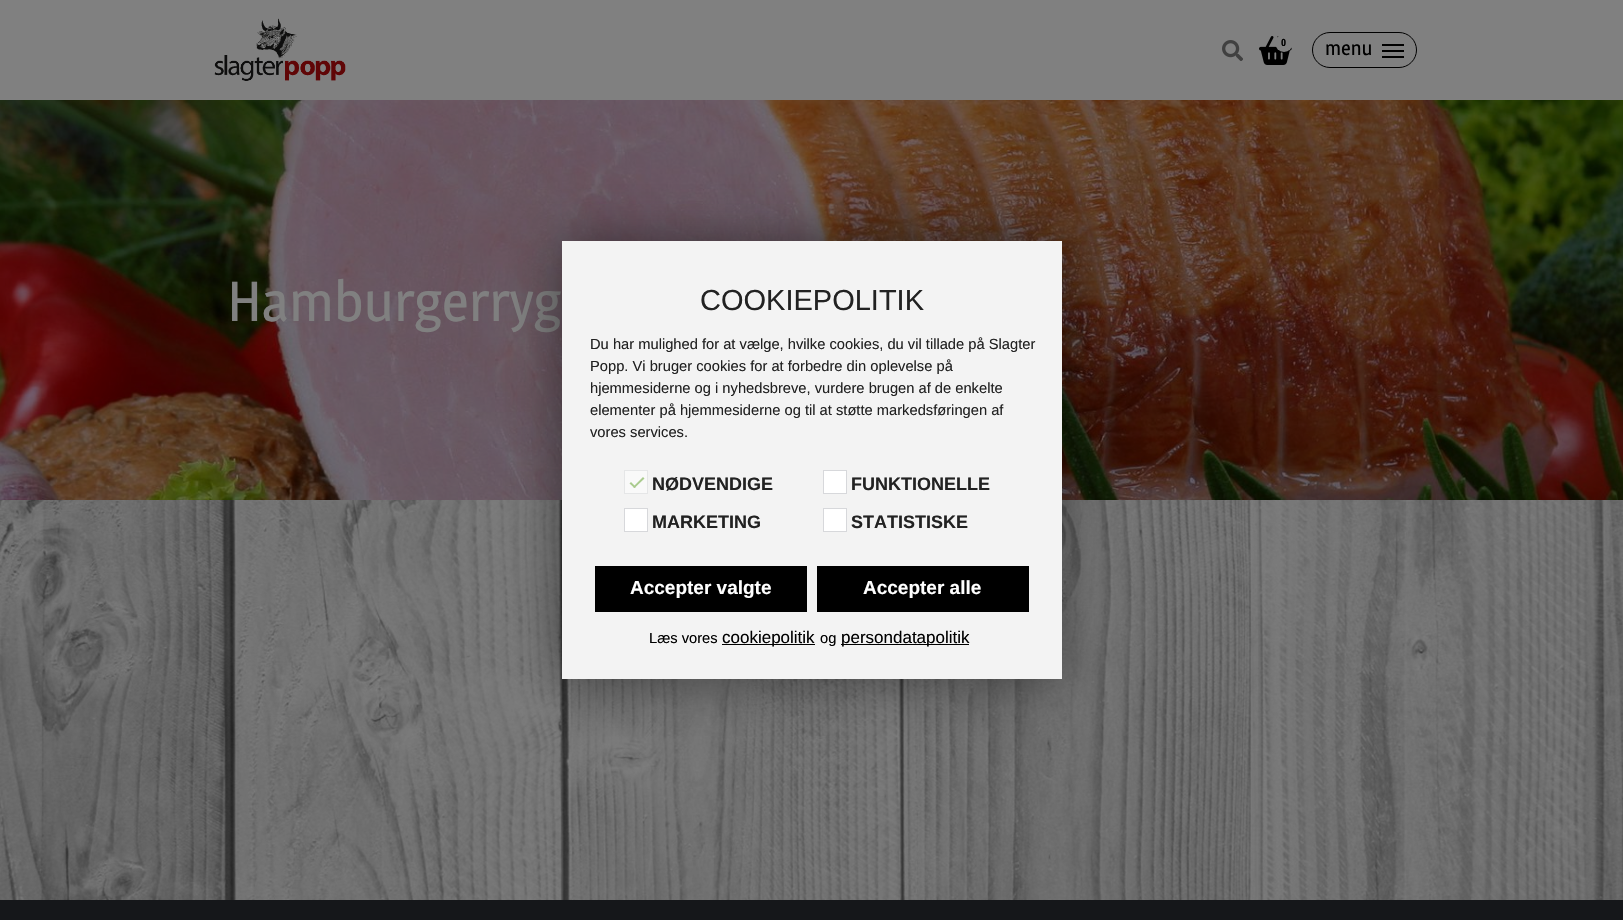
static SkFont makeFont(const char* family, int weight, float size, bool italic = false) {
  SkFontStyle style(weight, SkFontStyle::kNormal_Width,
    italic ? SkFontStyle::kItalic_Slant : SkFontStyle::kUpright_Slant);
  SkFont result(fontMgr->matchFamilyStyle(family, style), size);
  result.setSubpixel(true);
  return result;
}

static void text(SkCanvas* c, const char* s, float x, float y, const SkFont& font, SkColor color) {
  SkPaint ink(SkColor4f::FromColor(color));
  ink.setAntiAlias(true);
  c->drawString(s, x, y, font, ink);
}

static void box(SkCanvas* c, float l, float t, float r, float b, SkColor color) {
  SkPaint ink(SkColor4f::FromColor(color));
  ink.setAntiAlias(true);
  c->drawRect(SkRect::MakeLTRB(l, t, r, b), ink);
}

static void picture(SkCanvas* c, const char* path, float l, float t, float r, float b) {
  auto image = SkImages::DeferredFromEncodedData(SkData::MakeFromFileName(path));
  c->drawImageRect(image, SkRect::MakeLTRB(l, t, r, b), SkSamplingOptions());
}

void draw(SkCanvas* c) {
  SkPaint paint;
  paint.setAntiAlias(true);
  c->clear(0xffffffff);
  picture(c, "img_01.png", 0, 500, 1623, 900);
  box(c, 0, 0, 1623, 100, 0xff808080);
  picture(c, "img_02.png", 214, 18, 346, 81);
  picture(c, "img_03.png", 1222, 40, 1243, 61);
  picture(c, "img_04.png", 1259, 36, 1292, 65);
  paint.setColor(0xff808080);
  c->drawCircle(1284, 43, 9, paint);
  SkFont face1 = makeFont("Roboto Condensed", 700, 10);
  text(c, "0", 1281, 46, face1, 0xff000000);
  paint.setStyle(SkPaint::kStroke_Style);
  paint.setStrokeWidth(1);
  paint.setColor(0xff000000);
  c->drawRoundRect(SkRect::MakeLTRB(1312.5f, 32.5f, 1416.5f, 67.5f), 17.5f, 17.5f, paint);
  SkFont face2 = makeFont("Magra", 400, 20);
  text(c, "menu", 1325, 55, face2, 0xff000000);
  box(c, 1382, 44, 1404, 46, 0xff000000);
  box(c, 1382, 50, 1404, 52, 0xff000000);
  box(c, 1382, 56, 1404, 58, 0xff000000);
  picture(c, "img_05.png", 0, 100, 1623, 500);
  SkFont face3 = makeFont("Magra", 400, 56);
  text(c, "Hamburgerryg", 227, 321, face3, 0xff808080);
  box(c, 0, 900, 1623, 920, 0xff15171a);
  paint.setStyle(SkPaint::kFill_Style);
  paint.setColor(0x75000000);
  paint.setMaskFilter(SkMaskFilter::MakeBlur(kNormal_SkBlurStyle, 25));
  c->drawRect(SkRect::MakeLTRB(562, 241, 1062, 679), paint);
  paint.setMaskFilter(nullptr);
  box(c, 562, 241, 1062, 679, 0xfff3f3f3);
  SkFont face4 = makeFont("Liberation Sans", 400, 29);
  text(c, "COOKIEPOLITIK", 700, 310, face4, 0xff222222);
  SkFont face5 = makeFont("Liberation Sans", 400, 14.7f);
  text(c, "Du har mulighed for at vælge, hvilke cookies, du vil tillade på Slagter", 590, 349, face5, 0xff222222);
  text(c, "Popp. Vi bruger cookies for at forbedre din oplevelse på", 590, 371, face5, 0xff222222);
  text(c, "hjemmesiderne og i nyhedsbreve, vurdere brugen af de enkelte", 590, 393, face5, 0xff222222);
  text(c, "elementer på hjemmesiderne og til at støtte markedsføringen af", 590, 415, face5, 0xff222222);
  text(c, "vores services.", 590, 437, face5, 0xff222222);
  paint.setColor(0xfff9f9f9);
  c->drawRect(SkRect::MakeLTRB(624.5f, 470.5f, 647.5f, 493.5f), paint);
  paint.setStyle(SkPaint::kStroke_Style);
  paint.setColor(0xffe5e6e7);
  c->drawRect(SkRect::MakeLTRB(624.5f, 470.5f, 647.5f, 493.5f), paint);
  paint.setStyle(SkPaint::kFill_Style);
  paint.setColor(0xffaacb8e);
  c->drawPath(SkPathBuilder().moveTo(643, 477).lineTo(644.5f, 478.5f).lineTo(634.5f, 488).lineTo(633, 487).close().detach(), paint);
  c->drawPath(SkPathBuilder().moveTo(631, 482).lineTo(636, 487).lineTo(634.5f, 488).lineTo(629.5f, 483.5f).close().detach(), paint);
  SkFont face6 = makeFont("Liberation Sans", 700, 18);
  text(c, "NØDVENDIGE", 652, 490, face6, 0xff222222);
  paint.setColor(0xffffffff);
  c->drawRect(SkRect::MakeLTRB(823.5f, 470.5f, 846.5f, 493.5f), paint);
  paint.setStyle(SkPaint::kStroke_Style);
  paint.setColor(0xffd7d8db);
  c->drawRect(SkRect::MakeLTRB(823.5f, 470.5f, 846.5f, 493.5f), paint);
  text(c, "FUNKTIONELLE", 851, 490, face6, 0xff222222);
  paint.setStyle(SkPaint::kFill_Style);
  paint.setColor(0xffffffff);
  c->drawRect(SkRect::MakeLTRB(624.5f, 508.5f, 647.5f, 531.5f), paint);
  paint.setStyle(SkPaint::kStroke_Style);
  paint.setColor(0xffd7d8db);
  c->drawRect(SkRect::MakeLTRB(624.5f, 508.5f, 647.5f, 531.5f), paint);
  text(c, "MARKETING", 652, 528, face6, 0xff222222);
  paint.setStyle(SkPaint::kFill_Style);
  paint.setColor(0xffffffff);
  c->drawRect(SkRect::MakeLTRB(823.5f, 508.5f, 846.5f, 531.5f), paint);
  paint.setStyle(SkPaint::kStroke_Style);
  paint.setColor(0xffd7d8db);
  c->drawRect(SkRect::MakeLTRB(823.5f, 508.5f, 846.5f, 531.5f), paint);
  text(c, "STATISTISKE", 851, 528, face6, 0xff222222);
  box(c, 595, 566, 807, 612, 0xff000000);
  SkFont face7 = makeFont("Liberation Sans", 700, 19);
  text(c, "Accepter valgte", 630, 594, face7, 0xffffffff);
  box(c, 817, 566, 1029, 612, 0xff000000);
  text(c, "Accepter alle", 863, 594, face7, 0xffffffff);
  text(c, "Læs vores", 649, 643, face5, 0xff000000);
  box(c, 722, 644, 815, 645, 0xff000000);
  SkFont face8 = makeFont("Liberation Sans", 400, 17);
  text(c, "cookiepolitik", 722, 643, face8, 0xff000000);
  text(c, "og", 820, 643, face5, 0xff000000);
  box(c, 841, 644, 969, 645, 0xff000000);
  text(c, "persondatapolitik", 841, 643, face8, 0xff000000);
}
